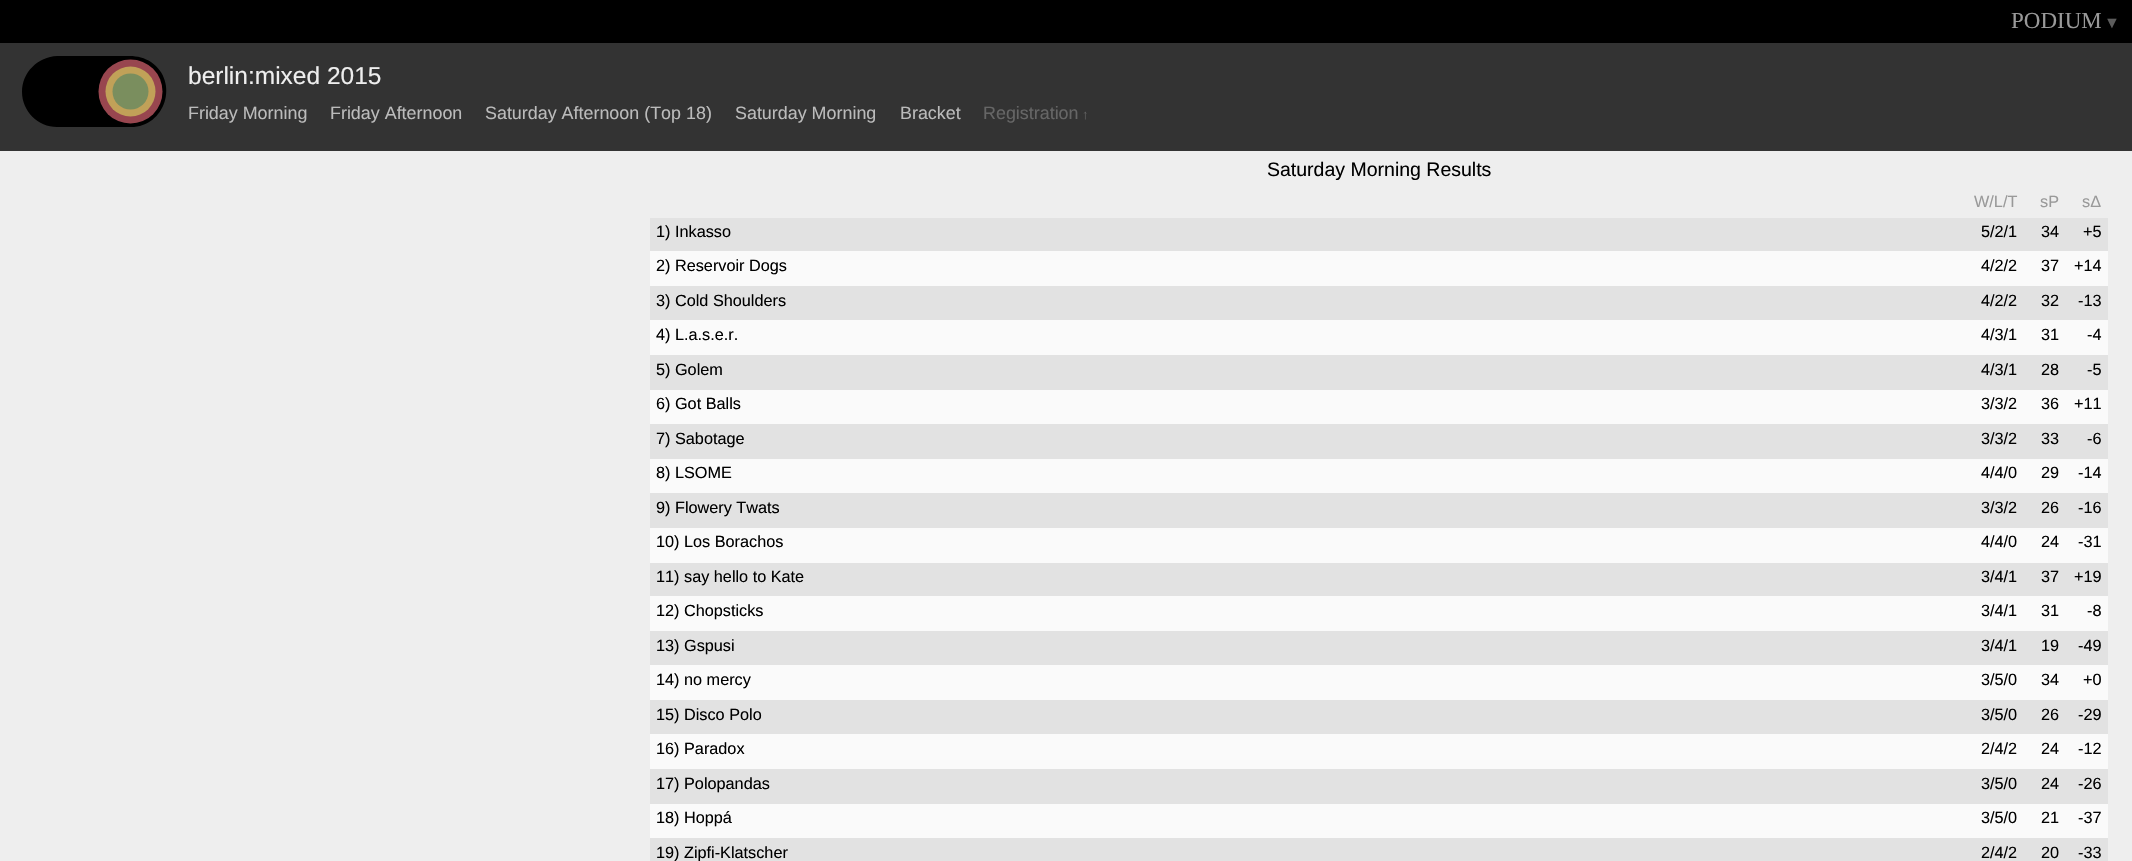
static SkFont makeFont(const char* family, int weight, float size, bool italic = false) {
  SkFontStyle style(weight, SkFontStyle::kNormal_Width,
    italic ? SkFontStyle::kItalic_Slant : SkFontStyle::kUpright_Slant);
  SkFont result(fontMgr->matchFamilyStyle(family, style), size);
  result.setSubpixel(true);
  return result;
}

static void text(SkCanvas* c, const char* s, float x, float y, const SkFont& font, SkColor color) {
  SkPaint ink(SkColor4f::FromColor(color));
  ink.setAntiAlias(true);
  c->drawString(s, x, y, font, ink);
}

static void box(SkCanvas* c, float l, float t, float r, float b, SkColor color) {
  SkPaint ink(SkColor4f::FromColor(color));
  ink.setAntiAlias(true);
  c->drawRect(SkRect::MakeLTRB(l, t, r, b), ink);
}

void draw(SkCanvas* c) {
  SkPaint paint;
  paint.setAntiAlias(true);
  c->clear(0xffeeeeee);
  box(c, 0, 0, 2132, 43, 0xff000000);
  SkFont face1 = makeFont("Liberation Serif", 400, 23);
  text(c, "PODIUM", 2011, 28, face1, 0xff999999);
  SkFont face2 = makeFont("Liberation Serif", 400, 16);
  text(c, "▼", 2104, 28, face2, 0xff5c5c5c);
  box(c, 0, 43, 2132, 151, 0xff333333);
  paint.setColor(0xff000000);
  c->drawPath(SkPathBuilder().moveTo(22, 92).cubicTo(22, 72, 38, 57, 57, 56).lineTo(130, 56).cubicTo(137, 56, 145, 58, 151, 62).cubicTo(180, 82, 165, 128, 130, 127).lineTo(57, 127).cubicTo(38, 127, 22, 111, 22, 92).close().detach(), paint);
  paint.setColor(0xff98464f);
  c->drawCircle(130.5f, 91.5f, 32, paint);
  paint.setColor(0xffc1a158);
  c->drawCircle(130.5f, 91.5f, 25, paint);
  paint.setColor(0xff7a8e5e);
  c->drawCircle(130.5f, 91.5f, 18, paint);
  SkFont face3 = makeFont("Liberation Sans", 400, 24.5f);
  text(c, "berlin:mixed 2015", 188, 84, face3, 0xffeeeeee);
  SkFont face4 = makeFont("Liberation Sans", 400, 17.9f);
  text(c, "Friday Morning", 188, 119, face4, 0xffbbbbbb);
  text(c, "Friday Afternoon", 330, 119, face4, 0xffbbbbbb);
  text(c, "Saturday Afternoon (Top 18)", 485, 119, face4, 0xffbbbbbb);
  text(c, "Saturday Morning", 735, 119, face4, 0xffbbbbbb);
  text(c, "Bracket", 900, 119, face4, 0xffbbbbbb);
  text(c, "Registration", 983, 119, face4, 0xff666666);
  SkFont face5 = makeFont("Liberation Sans", 400, 13);
  text(c, "↑", 1082, 119, face5, 0xff666666);
  SkFont face6 = makeFont("Liberation Sans", 400, 19.5f);
  text(c, "Saturday Morning Results", 1267, 176, face6, 0xff000000);
  SkFont face7 = makeFont("Liberation Sans", 400, 16.25f);
  text(c, "W/L/T", 1974, 207, face7, 0xff999999);
  text(c, "sP", 2040, 207, face7, 0xff999999);
  text(c, "sΔ", 2082, 207, face7, 0xff999999);
  box(c, 650, 218, 2108, 251, 0xffe2e2e2);
  text(c, "1) Inkasso", 656, 237, face7, 0xff000000);
  text(c, "5/2/1", 1981, 237, face7, 0xff000000);
  text(c, "34", 2041, 237, face7, 0xff000000);
  text(c, "+5", 2083, 237, face7, 0xff000000);
  box(c, 650, 251, 2108, 286, 0xfffafafa);
  text(c, "2) Reservoir Dogs", 656, 271, face7, 0xff000000);
  text(c, "4/2/2", 1981, 271, face7, 0xff000000);
  text(c, "37", 2041, 271, face7, 0xff000000);
  text(c, "+14", 2074, 271, face7, 0xff000000);
  box(c, 650, 286, 2108, 320, 0xffe2e2e2);
  text(c, "3) Cold Shoulders", 656, 306, face7, 0xff000000);
  text(c, "4/2/2", 1981, 306, face7, 0xff000000);
  text(c, "32", 2041, 306, face7, 0xff000000);
  text(c, "-13", 2078, 306, face7, 0xff000000);
  box(c, 650, 320, 2108, 355, 0xfffafafa);
  text(c, "4) L.a.s.e.r.", 656, 340, face7, 0xff000000);
  text(c, "4/3/1", 1981, 340, face7, 0xff000000);
  text(c, "31", 2041, 340, face7, 0xff000000);
  text(c, "-4", 2087, 340, face7, 0xff000000);
  box(c, 650, 355, 2108, 390, 0xffe2e2e2);
  text(c, "5) Golem", 656, 375, face7, 0xff000000);
  text(c, "4/3/1", 1981, 375, face7, 0xff000000);
  text(c, "28", 2041, 375, face7, 0xff000000);
  text(c, "-5", 2087, 375, face7, 0xff000000);
  box(c, 650, 390, 2108, 424, 0xfffafafa);
  text(c, "6) Got Balls", 656, 409, face7, 0xff000000);
  text(c, "3/3/2", 1981, 409, face7, 0xff000000);
  text(c, "36", 2041, 409, face7, 0xff000000);
  text(c, "+11", 2074, 409, face7, 0xff000000);
  box(c, 650, 424, 2108, 459, 0xffe2e2e2);
  text(c, "7) Sabotage", 656, 444, face7, 0xff000000);
  text(c, "3/3/2", 1981, 444, face7, 0xff000000);
  text(c, "33", 2041, 444, face7, 0xff000000);
  text(c, "-6", 2087, 444, face7, 0xff000000);
  box(c, 650, 459, 2108, 493, 0xfffafafa);
  text(c, "8) LSOME", 656, 478, face7, 0xff000000);
  text(c, "4/4/0", 1981, 478, face7, 0xff000000);
  text(c, "29", 2041, 478, face7, 0xff000000);
  text(c, "-14", 2078, 478, face7, 0xff000000);
  box(c, 650, 493, 2108, 528, 0xffe2e2e2);
  text(c, "9) Flowery Twats", 656, 513, face7, 0xff000000);
  text(c, "3/3/2", 1981, 513, face7, 0xff000000);
  text(c, "26", 2041, 513, face7, 0xff000000);
  text(c, "-16", 2078, 513, face7, 0xff000000);
  box(c, 650, 528, 2108, 563, 0xfffafafa);
  text(c, "10) Los Borachos", 656, 547, face7, 0xff000000);
  text(c, "4/4/0", 1981, 547, face7, 0xff000000);
  text(c, "24", 2041, 547, face7, 0xff000000);
  text(c, "-31", 2078, 547, face7, 0xff000000);
  box(c, 650, 563, 2108, 596, 0xffe2e2e2);
  text(c, "11) say hello to Kate", 656, 582, face7, 0xff000000);
  text(c, "3/4/1", 1981, 582, face7, 0xff000000);
  text(c, "37", 2041, 582, face7, 0xff000000);
  text(c, "+19", 2074, 582, face7, 0xff000000);
  box(c, 650, 596, 2108, 631, 0xfffafafa);
  text(c, "12) Chopsticks", 656, 616, face7, 0xff000000);
  text(c, "3/4/1", 1981, 616, face7, 0xff000000);
  text(c, "31", 2041, 616, face7, 0xff000000);
  text(c, "-8", 2087, 616, face7, 0xff000000);
  box(c, 650, 631, 2108, 665, 0xffe2e2e2);
  text(c, "13) Gspusi", 656, 651, face7, 0xff000000);
  text(c, "3/4/1", 1981, 651, face7, 0xff000000);
  text(c, "19", 2041, 651, face7, 0xff000000);
  text(c, "-49", 2078, 651, face7, 0xff000000);
  box(c, 650, 665, 2108, 700, 0xfffafafa);
  text(c, "14) no mercy", 656, 685, face7, 0xff000000);
  text(c, "3/5/0", 1981, 685, face7, 0xff000000);
  text(c, "34", 2041, 685, face7, 0xff000000);
  text(c, "+0", 2083, 685, face7, 0xff000000);
  box(c, 650, 700, 2108, 734, 0xffe2e2e2);
  text(c, "15) Disco Polo", 656, 720, face7, 0xff000000);
  text(c, "3/5/0", 1981, 720, face7, 0xff000000);
  text(c, "26", 2041, 720, face7, 0xff000000);
  text(c, "-29", 2078, 720, face7, 0xff000000);
  box(c, 650, 734, 2108, 769, 0xfffafafa);
  text(c, "16) Paradox", 656, 754, face7, 0xff000000);
  text(c, "2/4/2", 1981, 754, face7, 0xff000000);
  text(c, "24", 2041, 754, face7, 0xff000000);
  text(c, "-12", 2078, 754, face7, 0xff000000);
  box(c, 650, 769, 2108, 804, 0xffe2e2e2);
  text(c, "17) Polopandas", 656, 789, face7, 0xff000000);
  text(c, "3/5/0", 1981, 789, face7, 0xff000000);
  text(c, "24", 2041, 789, face7, 0xff000000);
  text(c, "-26", 2078, 789, face7, 0xff000000);
  box(c, 650, 804, 2108, 838, 0xfffafafa);
  text(c, "18) Hoppá", 656, 823, face7, 0xff000000);
  text(c, "3/5/0", 1981, 823, face7, 0xff000000);
  text(c, "21", 2041, 823, face7, 0xff000000);
  text(c, "-37", 2078, 823, face7, 0xff000000);
  box(c, 650, 838, 2108, 861, 0xffe2e2e2);
  text(c, "19) Zipfi-Klatscher", 656, 858, face7, 0xff000000);
  text(c, "2/4/2", 1981, 858, face7, 0xff000000);
  text(c, "20", 2041, 858, face7, 0xff000000);
  text(c, "-33", 2078, 858, face7, 0xff000000);
}
